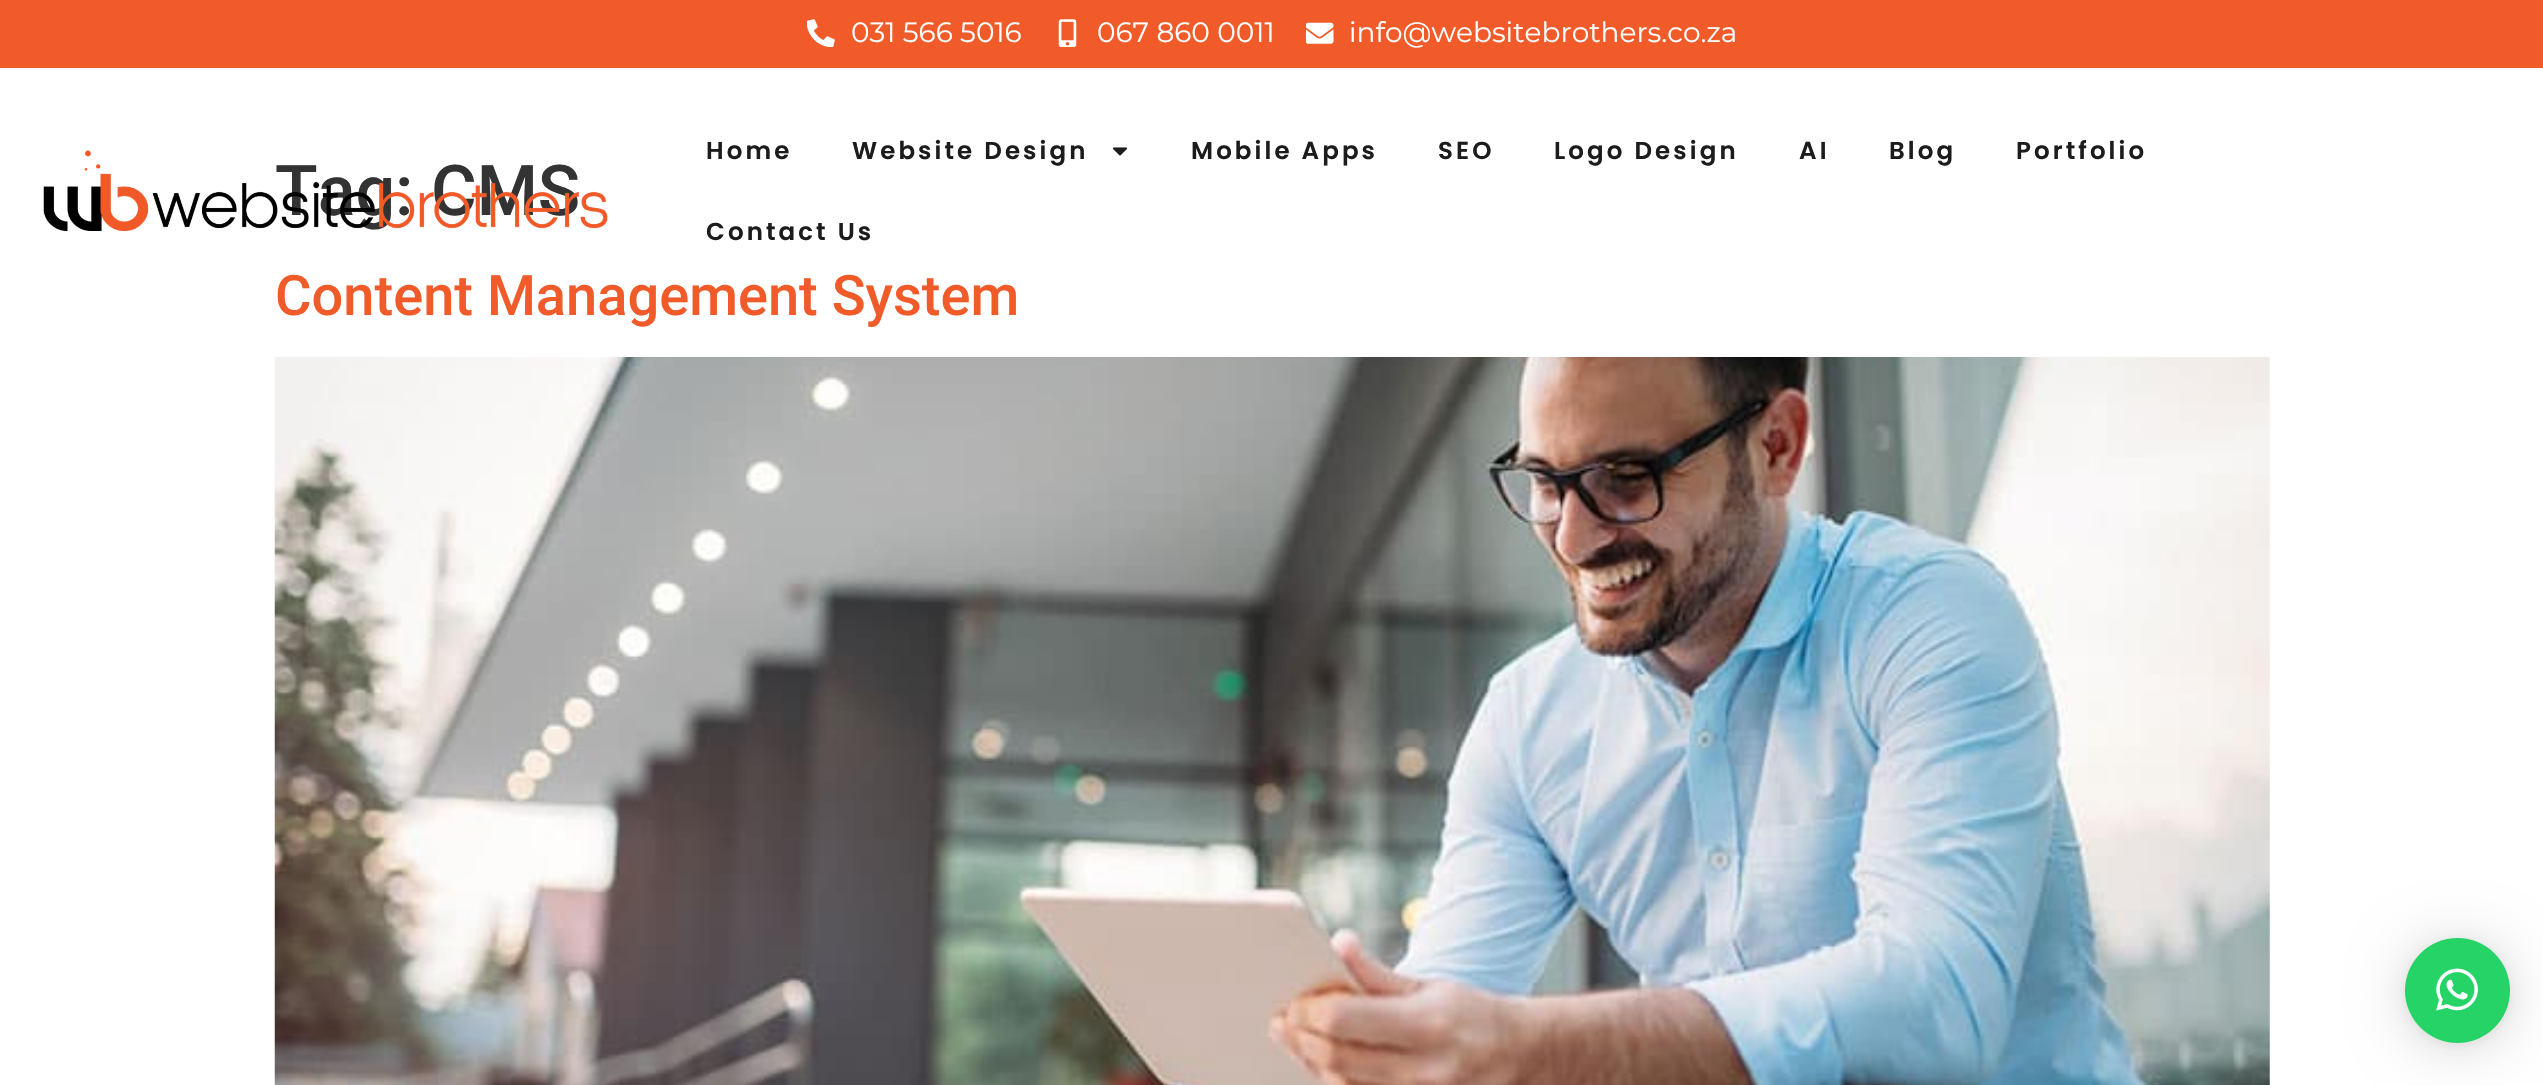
static SkFont makeFont(const char* family, int weight, float size, bool italic = false) {
  SkFontStyle style(weight, SkFontStyle::kNormal_Width,
    italic ? SkFontStyle::kItalic_Slant : SkFontStyle::kUpright_Slant);
  SkFont result(fontMgr->matchFamilyStyle(family, style), size);
  result.setSubpixel(true);
  return result;
}

static void text(SkCanvas* c, const char* s, float x, float y, const SkFont& font, SkColor color) {
  SkPaint ink(SkColor4f::FromColor(color));
  ink.setAntiAlias(true);
  c->drawString(s, x, y, font, ink);
}

static void spacedText(SkCanvas* c, const char* s, float x, float y, const SkFont& font, const SkPaint& ink, float letter, float word) {
  std::vector<SkGlyphID> glyphs(font.countText(s, strlen(s), SkTextEncoding::kUTF8));
  std::vector<float> xs(glyphs.size());
  font.textToGlyphs(s, strlen(s), SkTextEncoding::kUTF8, glyphs);
  font.getXPos(glyphs, xs, x);
  float extra = 0;
  for (size_t i = 0; i < glyphs.size(); i++) {
    xs[i] += extra;
    extra += letter + word * (glyphs[i] == font.unicharToGlyph(' '));
  }
  c->drawTextBlob(SkTextBlob::MakeFromPosHGlyphs(glyphs, xs, y, font), 0, 0, ink);
}

static void box(SkCanvas* c, float l, float t, float r, float b, SkColor color) {
  SkPaint ink(SkColor4f::FromColor(color));
  ink.setAntiAlias(true);
  c->drawRect(SkRect::MakeLTRB(l, t, r, b), ink);
}

static void picture(SkCanvas* c, const char* path, float l, float t, float r, float b) {
  auto image = SkImages::DeferredFromEncodedData(SkData::MakeFromFileName(path));
  c->drawImageRect(image, SkRect::MakeLTRB(l, t, r, b), SkSamplingOptions());
}

void draw(SkCanvas* c) {
  SkPaint paint;
  paint.setAntiAlias(true);
  c->clear(0xffffffff);
  SkFont face1 = makeFont("Roboto", 500, 70);
  text(c, "Tag: CMS", 275, 215, face1, 0xff333333);
  SkFont face2 = makeFont("Roboto", 500, 56);
  text(c, "Content Management System", 275, 315, face2, 0xfff15a29);
  picture(c, "img_01.png", 274, 357, 2270, 1085);
  box(c, 0, 0, 2543, 68, 0xfff15a29);
  picture(c, "img_02.png", 807, 19, 835, 47);
  SkFont face3 = makeFont("Montserrat", 400, 28);
  text(c, "031 566 5016", 851, 42, face3, 0xffffffff);
  picture(c, "img_03.png", 1058, 19, 1077, 47);
  text(c, "067 860 0011", 1097, 42, face3, 0xffffffff);
  picture(c, "img_04.png", 1306, 22, 1334, 44);
  text(c, "info@websitebrothers.co.za", 1349, 42, face3, 0xffffffff);
  picture(c, "img_05.png", 43, 150, 608, 231);
  SkFont face4 = makeFont("Poppins", 600, 24.5f);
  paint.setColor(0xff1c1c1c);
  spacedText(c, "Home", 706, 159, face4, paint, 3.1f, 0);
  spacedText(c, "Website Design", 852, 159, face4, paint, 3.1f, 0);
  picture(c, "img_06.png", 1112, 147, 1128, 156);
  spacedText(c, "Mobile Apps", 1191, 159, face4, paint, 3.1f, 0);
  spacedText(c, "SEO", 1438, 159, face4, paint, 3.1f, 0);
  spacedText(c, "Logo Design", 1554, 159, face4, paint, 3.1f, 0);
  spacedText(c, "AI", 1799, 159, face4, paint, 3.1f, 0);
  spacedText(c, "Blog", 1889, 159, face4, paint, 3.1f, 0);
  spacedText(c, "Portfolio", 2016, 159, face4, paint, 3.1f, 0);
  spacedText(c, "Contact Us", 706, 240, face4, paint, 3.1f, 0);
  paint.setColor(0x29000000);
  paint.setMaskFilter(SkMaskFilter::MakeBlur(kNormal_SkBlurStyle, 28));
  c->drawRoundRect(SkRect::MakeLTRB(2405, 942, 2510, 1047), 52.5f, 52.5f, paint);
  paint.setMaskFilter(nullptr);
  paint.setColor(0x0f000000);
  paint.setMaskFilter(SkMaskFilter::MakeBlur(kNormal_SkBlurStyle, 5));
  c->drawRoundRect(SkRect::MakeLTRB(2405, 940, 2510, 1045), 52.5f, 52.5f, paint);
  paint.setMaskFilter(nullptr);
  paint.setColor(0xff25d366);
  c->drawCircle(2457.5f, 990.5f, 52.5f, paint);
  picture(c, "img_07.png", 2436, 968, 2478, 1011);
}
